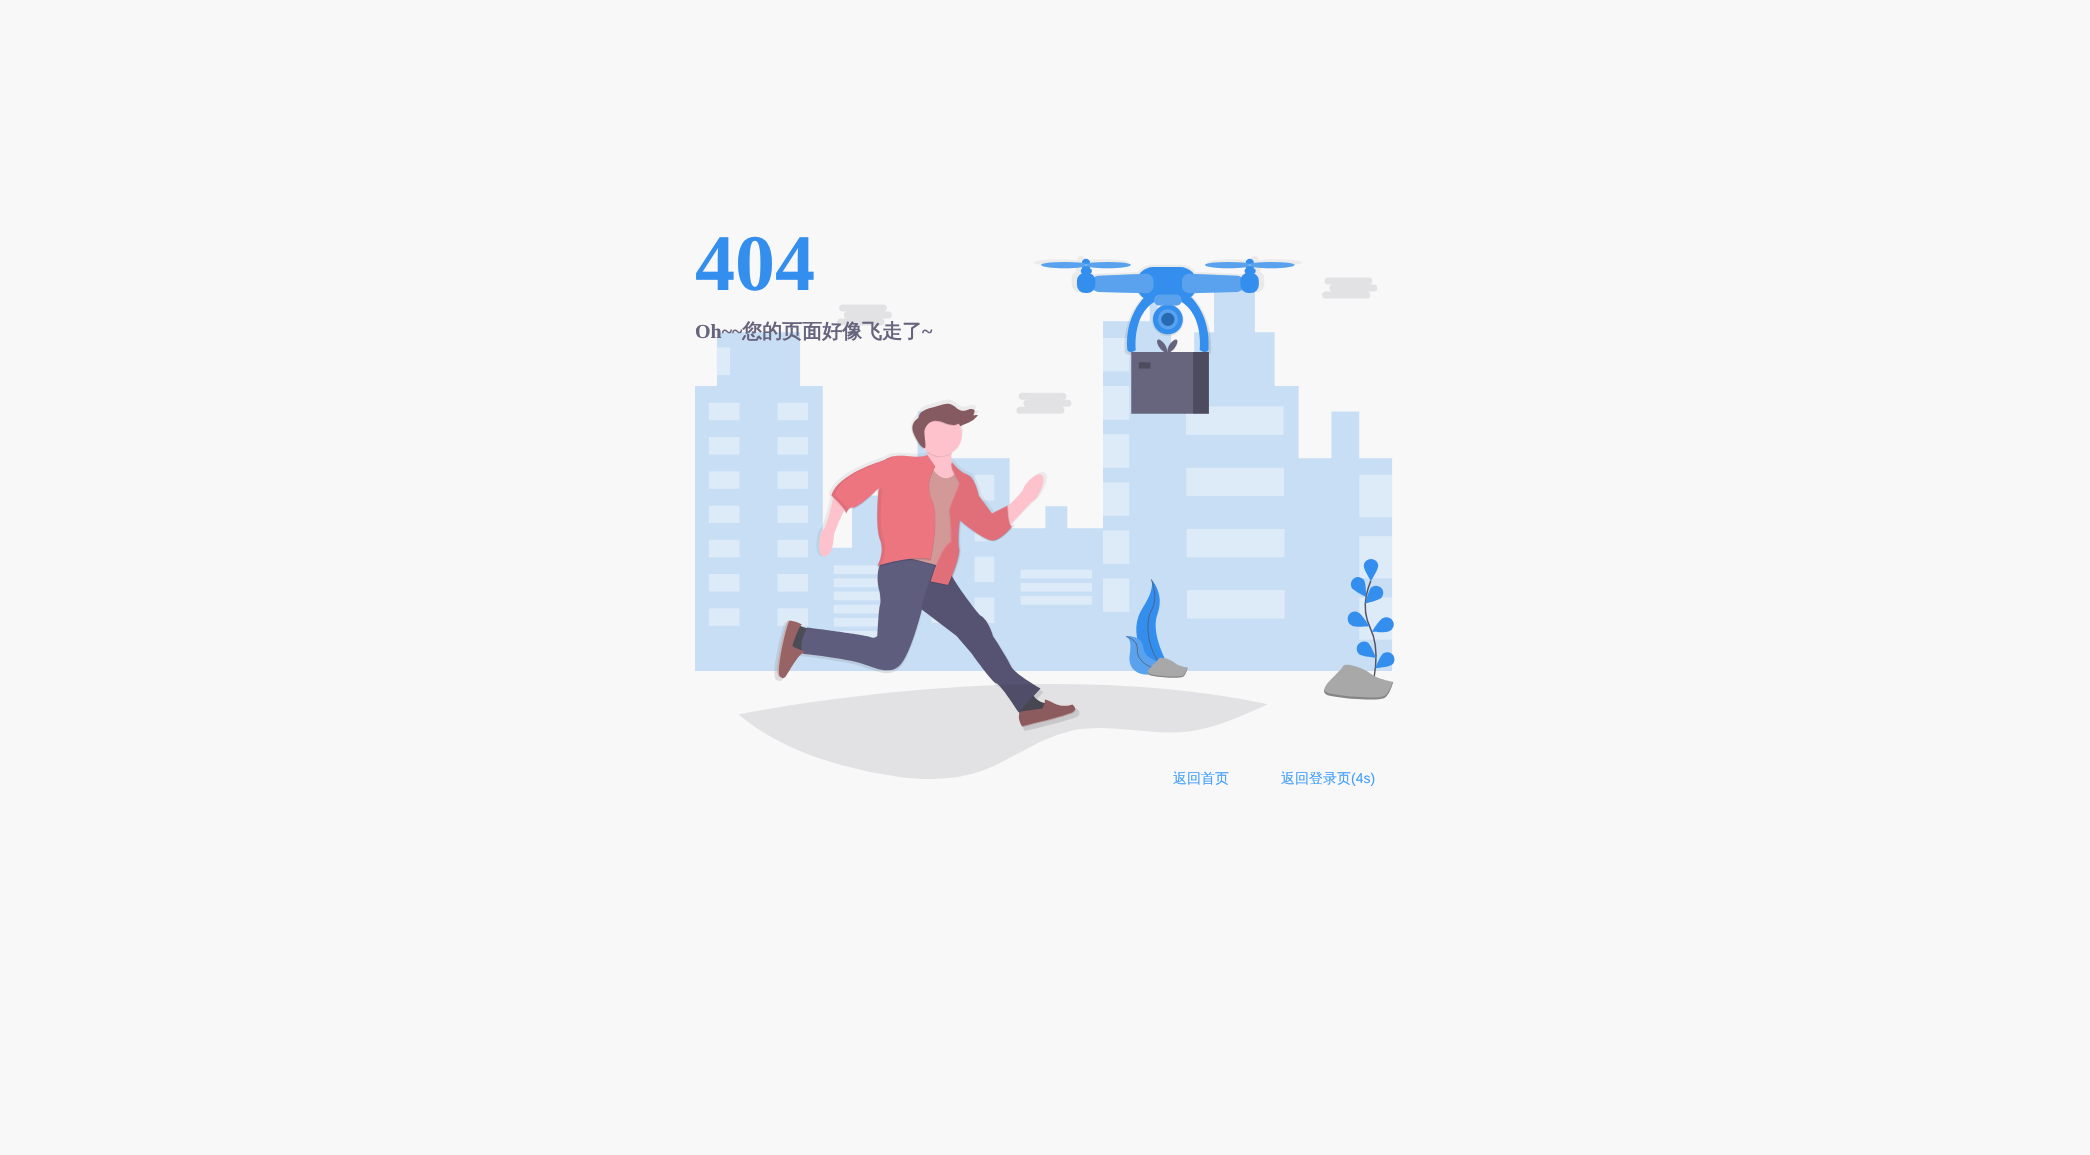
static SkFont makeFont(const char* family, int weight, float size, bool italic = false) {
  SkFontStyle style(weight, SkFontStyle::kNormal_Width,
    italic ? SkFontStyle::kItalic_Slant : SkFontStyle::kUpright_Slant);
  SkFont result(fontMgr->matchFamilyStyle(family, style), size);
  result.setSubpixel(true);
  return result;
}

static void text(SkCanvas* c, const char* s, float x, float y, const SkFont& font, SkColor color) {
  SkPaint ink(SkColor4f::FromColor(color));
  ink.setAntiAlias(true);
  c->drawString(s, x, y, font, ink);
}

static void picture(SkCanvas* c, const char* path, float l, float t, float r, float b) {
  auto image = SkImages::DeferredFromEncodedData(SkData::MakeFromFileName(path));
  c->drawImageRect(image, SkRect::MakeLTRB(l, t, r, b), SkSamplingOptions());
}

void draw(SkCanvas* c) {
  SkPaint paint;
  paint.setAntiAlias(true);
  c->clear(0xfff8f8f9);
  picture(c, "img_01.png", 695, 256, 1395, 779);
  SkFont face1 = makeFont("Liberation Serif", 700, 80);
  text(c, "404", 695, 290, face1, 0xff348eed);
  SkFont face2 = makeFont("Liberation Serif", 700, 20);
  text(c, "Oh~~", 695, 338, face2, 0xff67647d);
  SkFont face3 = makeFont("WenQuanYi Zen Hei", 700, 20);
  text(c, "您的页面好像飞走了", 742, 338, face3, 0xff67647d);
  text(c, "~", 922, 338, face2, 0xff67647d);
  SkFont face4 = makeFont("WenQuanYi Zen Hei", 500, 14);
  text(c, "返回首页", 1173, 783, face4, 0xff409eff);
  text(c, "返回登录页", 1281, 783, face4, 0xff409eff);
  SkFont face5 = makeFont("Liberation Sans", 400, 14);
  text(c, "(4s)", 1351, 783, face5, 0xff409eff);
}
